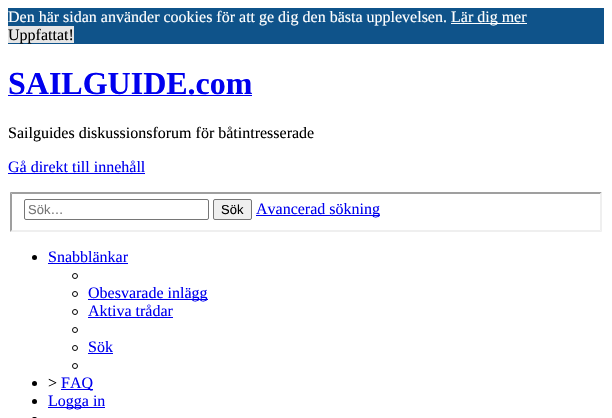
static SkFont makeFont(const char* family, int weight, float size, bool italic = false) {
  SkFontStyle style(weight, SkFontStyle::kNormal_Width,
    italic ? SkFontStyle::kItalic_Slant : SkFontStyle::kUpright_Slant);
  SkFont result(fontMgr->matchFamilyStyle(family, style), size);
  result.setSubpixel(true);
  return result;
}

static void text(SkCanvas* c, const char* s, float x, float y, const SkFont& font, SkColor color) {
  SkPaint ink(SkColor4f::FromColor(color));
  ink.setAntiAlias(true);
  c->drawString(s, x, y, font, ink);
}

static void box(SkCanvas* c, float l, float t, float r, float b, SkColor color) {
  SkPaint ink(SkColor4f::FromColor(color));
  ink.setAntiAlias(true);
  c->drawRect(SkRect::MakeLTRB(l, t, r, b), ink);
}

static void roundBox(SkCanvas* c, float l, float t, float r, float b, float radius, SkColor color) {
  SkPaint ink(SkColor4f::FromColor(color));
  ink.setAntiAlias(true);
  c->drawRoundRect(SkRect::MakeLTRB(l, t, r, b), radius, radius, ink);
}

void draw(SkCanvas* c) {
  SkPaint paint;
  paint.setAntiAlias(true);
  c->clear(0xffffffff);
  box(c, 8, 8, 604, 44, 0xff0f538a);
  SkFont face1 = makeFont("Liberation Serif", 400, 16);
  text(c, "Den här sidan använder cookies för att ge dig den bästa upplevelsen.", 8, 22, face1, 0xffffffff);
  box(c, 451, 23, 527, 24, 0xffffffff);
  text(c, "Lär dig mer", 451, 22, face1, 0xffffffff);
  box(c, 8, 26, 74, 43, 0xffe5e5e5);
  text(c, "Uppfattat!", 8, 40, face1, 0xff000000);
  SkFont face2 = makeFont("Liberation Serif", 700, 32);
  text(c, "SAILGUIDE.com", 8, 94, face2, 0xff0000ee);
  box(c, 8, 95, 252, 96, 0xff0000ee);
  text(c, "Sailguides diskussionsforum för båtintresserade", 8, 138, face1, 0xff000000);
  text(c, "Gå direkt till innehåll", 8, 172, face1, 0xff0000ee);
  box(c, 8, 173, 145, 174, 0xff0000ee);
  paint.setColor(0xff9f9f9f);
  c->drawPath(SkPathBuilder().moveTo(10, 192).lineTo(602, 192).lineTo(600, 194).lineTo(12, 194).close().detach(), paint);
  paint.setColor(0xffefefef);
  c->drawPath(SkPathBuilder().moveTo(602, 192).lineTo(602, 232).lineTo(600, 230).lineTo(600, 194).close().detach(), paint);
  c->drawPath(SkPathBuilder().moveTo(602, 232).lineTo(10, 232).lineTo(12, 230).lineTo(600, 230).close().detach(), paint);
  paint.setColor(0xff9f9f9f);
  c->drawPath(SkPathBuilder().moveTo(10, 232).lineTo(10, 192).lineTo(12, 194).lineTo(12, 230).close().detach(), paint);
  paint.setStyle(SkPaint::kStroke_Style);
  paint.setStrokeWidth(1);
  paint.setColor(0xff767676);
  c->drawRoundRect(SkRect::MakeLTRB(24.5f, 199.5f, 208.5f, 219.5f), 1.5f, 1.5f, paint);
  SkFont face3 = makeFont("Liberation Sans", 400, 13);
  text(c, "Sök…", 28, 214, face3, 0xff757575);
  paint.setStyle(SkPaint::kFill_Style);
  paint.setColor(0xffefefef);
  c->drawRoundRect(SkRect::MakeLTRB(213.5f, 199.5f, 251.5f, 219.5f), 1.5f, 1.5f, paint);
  paint.setStyle(SkPaint::kStroke_Style);
  paint.setColor(0xff767676);
  c->drawRoundRect(SkRect::MakeLTRB(213.5f, 199.5f, 251.5f, 219.5f), 1.5f, 1.5f, paint);
  text(c, "Sök", 221, 214, face3, 0xff000000);
  box(c, 256, 215, 380, 216, 0xff0000ee);
  text(c, "Avancerad sökning", 256, 214, face1, 0xff0000ee);
  paint.setStyle(SkPaint::kFill_Style);
  paint.setColor(0xff000000);
  c->drawCircle(34.5f, 257.5f, 2.5f, paint);
  text(c, "Snabblänkar", 48, 262, face1, 0xff0000ee);
  box(c, 48, 263, 128, 264, 0xff0000ee);
  paint.setStyle(SkPaint::kStroke_Style);
  c->drawCircle(75, 276, 2.5f, paint);
  c->drawCircle(75, 294, 2.5f, paint);
  box(c, 88, 299, 208, 300, 0xff0000ee);
  text(c, "Obesvarade inlägg", 88, 298, face1, 0xff0000ee);
  c->drawCircle(75, 312, 2.5f, paint);
  text(c, "Aktiva trådar", 88, 316, face1, 0xff0000ee);
  box(c, 88, 317, 173, 318, 0xff0000ee);
  c->drawCircle(75, 330, 2.5f, paint);
  c->drawCircle(75, 348, 2.5f, paint);
  text(c, "Sök", 88, 352, face1, 0xff0000ee);
  box(c, 88, 353, 113, 354, 0xff0000ee);
  c->drawCircle(75, 366, 2.5f, paint);
  paint.setStyle(SkPaint::kFill_Style);
  c->drawCircle(34.5f, 383.5f, 2.5f, paint);
  text(c, ">", 48, 388, face1, 0xff000000);
  box(c, 61, 389, 93, 390, 0xff0000ee);
  text(c, "FAQ", 61, 388, face1, 0xff0000ee);
  c->drawCircle(34.5f, 401.5f, 2.5f, paint);
  box(c, 48, 407, 105, 408, 0xff0000ee);
  text(c, "Logga in", 48, 406, face1, 0xff0000ee);
  roundBox(c, 32, 417, 37, 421, 2.5f, 0xff000000);
}
